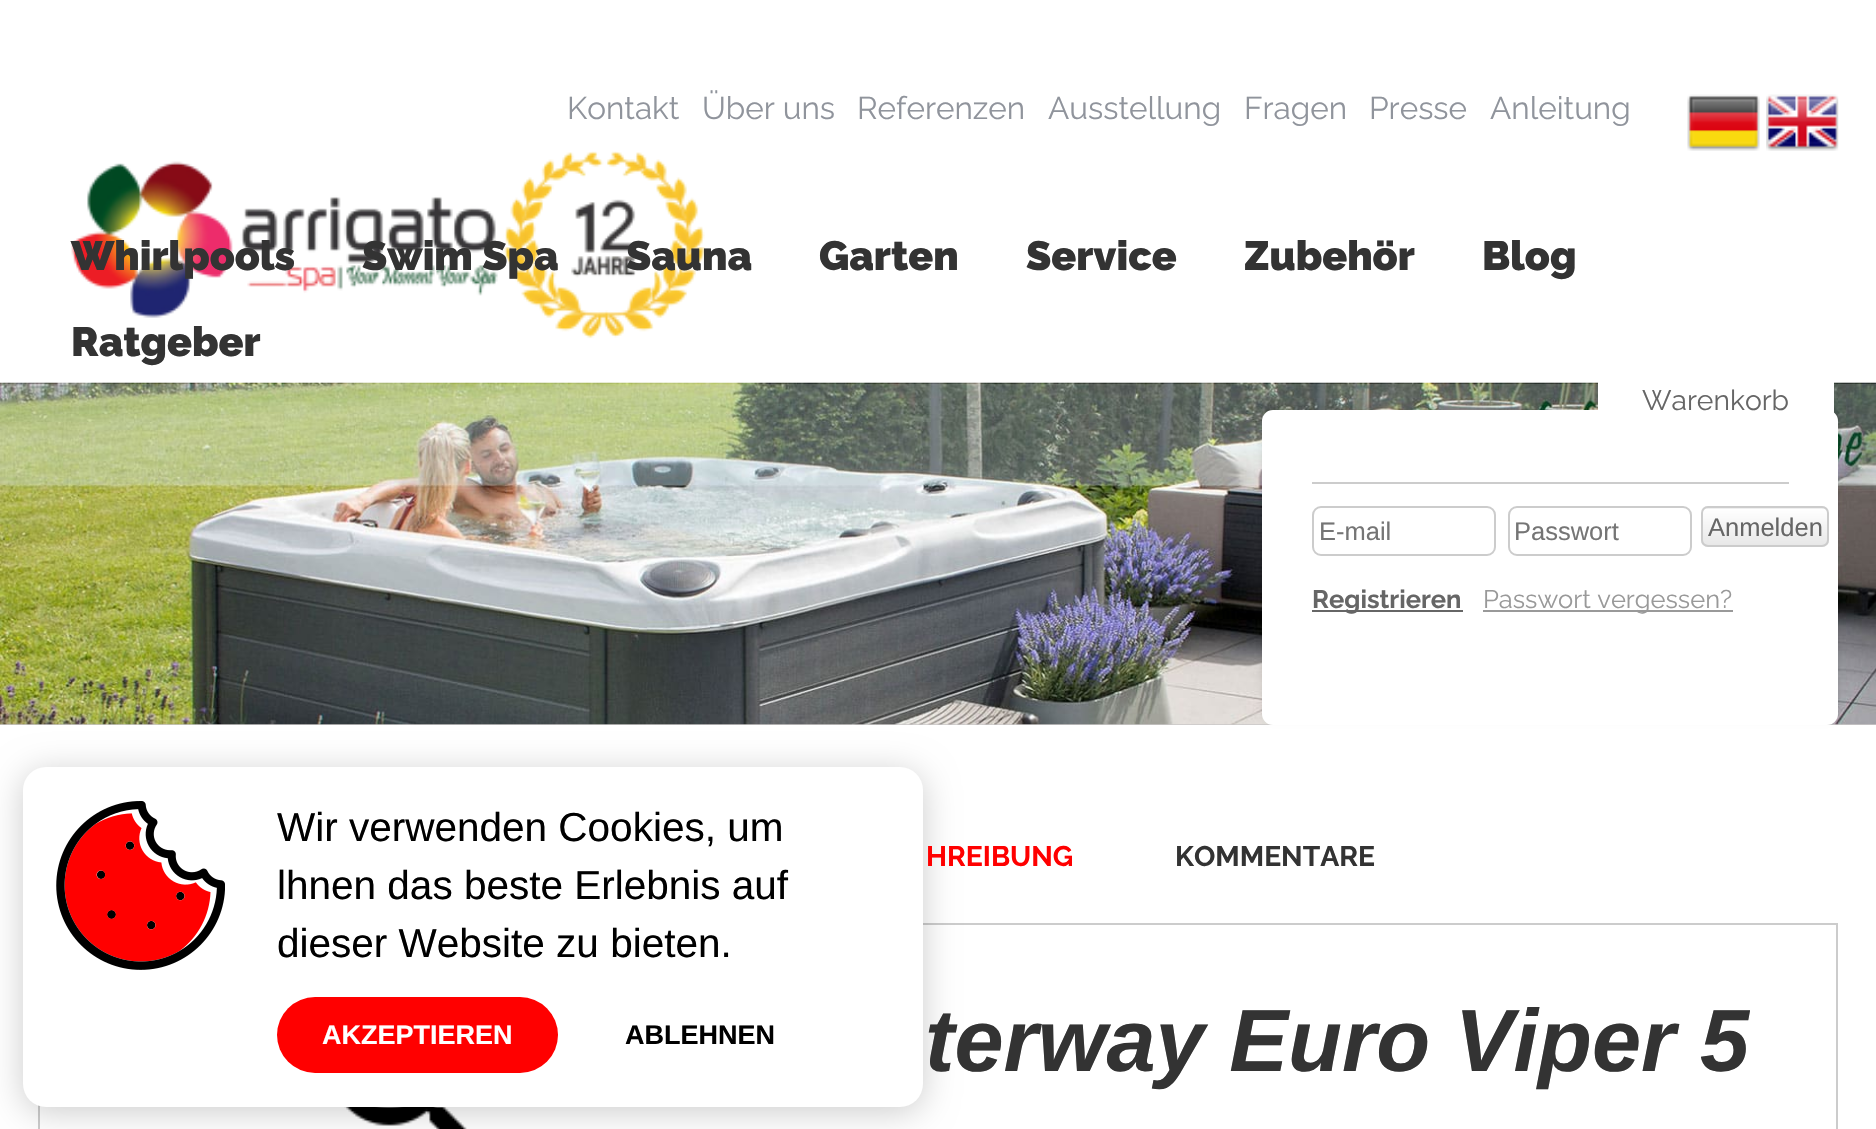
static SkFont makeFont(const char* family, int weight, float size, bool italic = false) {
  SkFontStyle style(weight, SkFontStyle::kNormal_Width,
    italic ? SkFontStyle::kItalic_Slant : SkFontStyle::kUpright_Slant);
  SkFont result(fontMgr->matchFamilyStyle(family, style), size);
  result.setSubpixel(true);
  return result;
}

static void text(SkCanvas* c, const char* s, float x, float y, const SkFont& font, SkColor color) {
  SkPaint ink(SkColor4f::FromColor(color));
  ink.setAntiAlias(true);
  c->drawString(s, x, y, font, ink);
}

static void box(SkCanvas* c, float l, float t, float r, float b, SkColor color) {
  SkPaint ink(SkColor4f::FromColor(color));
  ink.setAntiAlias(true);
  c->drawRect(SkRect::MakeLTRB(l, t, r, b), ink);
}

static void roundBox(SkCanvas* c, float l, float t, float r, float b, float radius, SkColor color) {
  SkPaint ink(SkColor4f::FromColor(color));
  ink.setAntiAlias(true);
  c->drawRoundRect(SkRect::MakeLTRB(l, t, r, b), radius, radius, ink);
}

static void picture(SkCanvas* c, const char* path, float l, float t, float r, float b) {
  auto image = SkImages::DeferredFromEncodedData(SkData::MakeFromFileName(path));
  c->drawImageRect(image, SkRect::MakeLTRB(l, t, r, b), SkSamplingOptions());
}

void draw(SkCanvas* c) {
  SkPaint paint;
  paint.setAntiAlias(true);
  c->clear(0xffffffff);
  SkFont face1 = makeFont("Raleway", 400, 31.5f);
  text(c, "Kontakt", 567, 119, face1, 0xff90949c);
  text(c, "Über uns", 702, 119, face1, 0xff90949c);
  text(c, "Referenzen", 857, 119, face1, 0xff90949c);
  text(c, "Ausstellung", 1048, 119, face1, 0xff90949c);
  text(c, "Fragen", 1244, 119, face1, 0xff90949c);
  text(c, "Presse", 1369, 119, face1, 0xff90949c);
  text(c, "Anleitung", 1490, 119, face1, 0xff90949c);
  picture(c, "img_01.png", 1687, 94, 1760, 151);
  picture(c, "img_02.png", 1766, 94, 1839, 151);
  picture(c, "img_03.png", 71, 151, 705, 339);
  SkFont face2 = makeFont("Raleway", 900, 41);
  text(c, "Whirlpools", 71, 270, face2, 0xff333333);
  text(c, "Swim Spa", 362, 270, face2, 0xff333333);
  text(c, "Sauna", 626, 270, face2, 0xff333333);
  text(c, "Garten", 819, 270, face2, 0xff333333);
  text(c, "Service", 1026, 270, face2, 0xff333333);
  text(c, "Zubehör", 1244, 270, face2, 0xff333333);
  text(c, "Blog", 1482, 270, face2, 0xff333333);
  text(c, "Ratgeber", 71, 356, face2, 0xff333333);
  box(c, 0, 724, 1876, 725, 0xffcac7c7);
  picture(c, "img_04.png", 0, 382, 1876, 725);
  paint.setColor(0x1a000000);
  paint.setMaskFilter(SkMaskFilter::MakeBlur(kNormal_SkBlurStyle, 3.5f));
  c->drawRoundRect(SkRect::MakeLTRB(1262, 405, 1838, 720), 11, 11, paint);
  paint.setMaskFilter(nullptr);
  paint.setColor(0xffffffff);
  c->drawRoundRect(SkRect::MakeLTRB(1264.5f, 412.5f, 1835.5f, 722.5f), 8.5f, 8.5f, paint);
  paint.setStyle(SkPaint::kStroke_Style);
  paint.setStrokeWidth(5);
  c->drawRoundRect(SkRect::MakeLTRB(1264.5f, 412.5f, 1835.5f, 722.5f), 8.5f, 8.5f, paint);
  roundBox(c, 1598, 358, 1834, 443, 11, 0xffffffff);
  SkFont face3 = makeFont("Raleway", 400, 28.25f);
  text(c, "Warenkorb", 1642, 410, face3, 0xff666666);
  box(c, 1312, 482, 1789, 484, 0xffcccccc);
  paint.setStrokeWidth(2);
  paint.setColor(0xffcccccc);
  c->drawRoundRect(SkRect::MakeLTRB(1313, 507, 1495, 555), 8, 8, paint);
  SkFont face4 = makeFont("Liberation Sans", 400, 25.5f);
  text(c, "E-mail", 1319, 540, face4, 0xff757575);
  c->drawRoundRect(SkRect::MakeLTRB(1509, 507, 1691, 555), 8, 8, paint);
  text(c, "Passwort", 1514, 540, face4, 0xff757575);
  roundBox(c, 1701, 506, 1829, 547, 7, 0xffefefef);
  c->save();
  c->clipPath(SkPathBuilder().moveTo(1708, 506).lineTo(1822, 506).cubicTo(1826, 506, 1829, 509, 1829, 513).lineTo(1829, 540).cubicTo(1829, 544, 1826, 547, 1822, 547).lineTo(1708, 547).cubicTo(1704, 547, 1701, 544, 1701, 540).lineTo(1701, 513).cubicTo(1701, 509, 1704, 506, 1708, 506).close().detach(), true);
  paint.setStyle(SkPaint::kFill_Style);
  {
    const SkColor colors[] = {0xffffffff, 0xffe8e8e8};
    const float stops[] = {0, 1};
    const SkPoint ends[] = {{1765, 509}, {1765, 545}};
    paint.setShader(SkGradientShader::MakeLinear(ends, colors, stops, 2, SkTileMode::kClamp));
    paint.setAlpha(255);
  }
  c->drawRect(SkRect::MakeLTRB(1701, 509, 1829, 545), paint);
  c->restore();
  paint.setStyle(SkPaint::kStroke_Style);
  paint.setShader(nullptr);
  paint.setColor(0xffcccccc);
  c->drawRoundRect(SkRect::MakeLTRB(1702, 507, 1828, 546), 6, 6, paint);
  text(c, "Anmelden", 1708, 536, face4, 0xff666666);
  box(c, 1312, 610, 1463, 612, 0xff666666);
  SkFont face5 = makeFont("Raleway", 700, 25.5f);
  text(c, "Registrieren", 1312, 608, face5, 0xff666666);
  box(c, 1483, 610, 1733, 612, 0xff999999);
  SkFont face6 = makeFont("Raleway", 400, 25.5f);
  text(c, "Passwort vergessen?", 1483, 608, face6, 0xff999999);
  c->drawRect(SkRect::MakeLTRB(39, 793, 1837, 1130), paint);
  box(c, 923, 792, 1838, 923, 0xffffffff);
  box(c, 923, 923, 1838, 925, 0xffcccccc);
  picture(c, "img_06.png", 344, 1107, 467, 1129);
  paint.setStyle(SkPaint::kFill_Style);
  paint.setColor(0x33000000);
  paint.setMaskFilter(SkMaskFilter::MakeBlur(kNormal_SkBlurStyle, 17));
  c->drawRoundRect(SkRect::MakeLTRB(23, 772, 923, 1112), 23, 23, paint);
  paint.setMaskFilter(nullptr);
  roundBox(c, 23, 767, 923, 1107, 23, 0xffffffff);
  picture(c, "img_05.png", 56, 801, 225, 970);
  SkFont face7 = makeFont("Liberation Sans", 400, 40.5f);
  text(c, "Wir verwenden Cookies, um", 277, 841, face7, 0xff000000);
  text(c, "lhnen das beste Erlebnis auf", 277, 899, face7, 0xff000000);
  text(c, "dieser Website zu bieten.", 277, 957, face7, 0xff000000);
  roundBox(c, 277, 997, 558, 1073, 38, 0xffff0000);
  SkFont face8 = makeFont("Liberation Sans", 700, 27);
  text(c, "AKZEPTIEREN", 322, 1044, face8, 0xffffffff);
  text(c, "ABLEHNEN", 625, 1044, face8, 0xff000000);
  SkFont face9 = makeFont("Raleway", 700, 28.25f);
  text(c, "HREIBUNG", 926, 866, face9, 0xffff0000);
  text(c, "KOMMENTARE", 1175, 866, face9, 0xff333333);
  SkFont face10 = makeFont("Liberation Sans", 700, 88.25f, true);
  text(c, "terway Euro Viper 5", 925, 1071, face10, 0xff333333);
}
